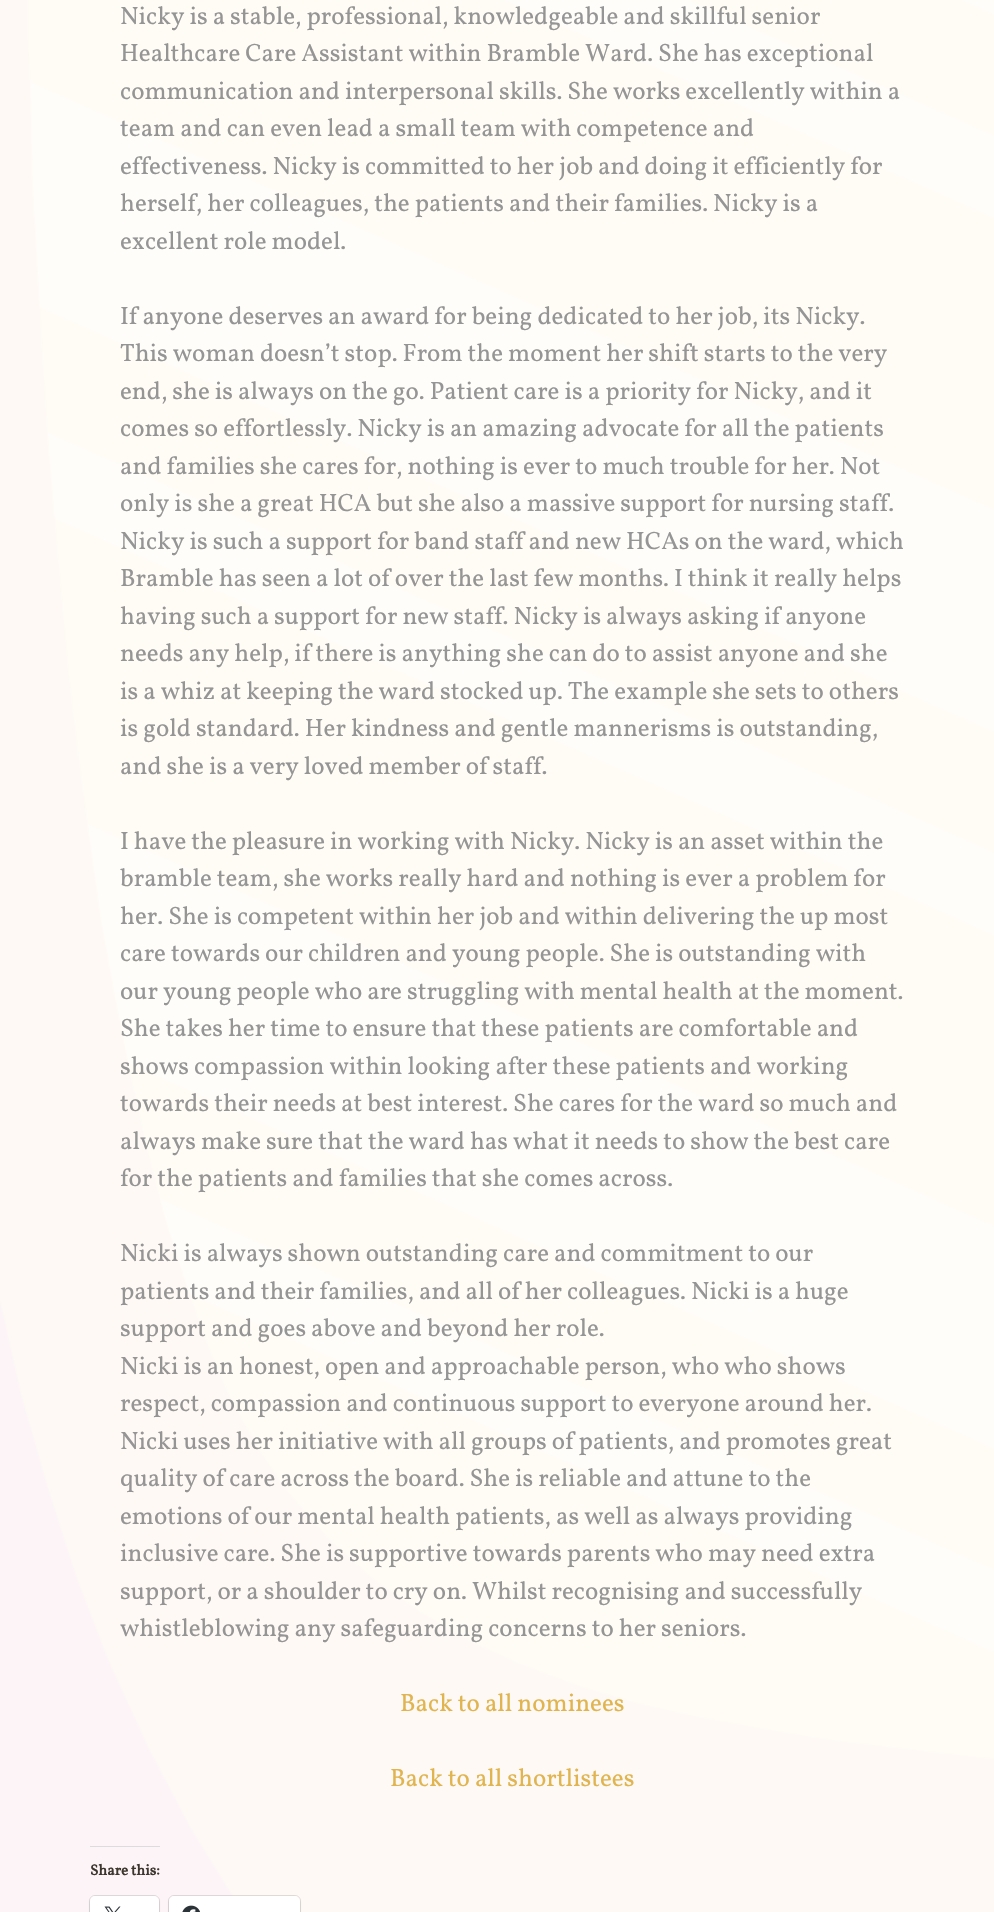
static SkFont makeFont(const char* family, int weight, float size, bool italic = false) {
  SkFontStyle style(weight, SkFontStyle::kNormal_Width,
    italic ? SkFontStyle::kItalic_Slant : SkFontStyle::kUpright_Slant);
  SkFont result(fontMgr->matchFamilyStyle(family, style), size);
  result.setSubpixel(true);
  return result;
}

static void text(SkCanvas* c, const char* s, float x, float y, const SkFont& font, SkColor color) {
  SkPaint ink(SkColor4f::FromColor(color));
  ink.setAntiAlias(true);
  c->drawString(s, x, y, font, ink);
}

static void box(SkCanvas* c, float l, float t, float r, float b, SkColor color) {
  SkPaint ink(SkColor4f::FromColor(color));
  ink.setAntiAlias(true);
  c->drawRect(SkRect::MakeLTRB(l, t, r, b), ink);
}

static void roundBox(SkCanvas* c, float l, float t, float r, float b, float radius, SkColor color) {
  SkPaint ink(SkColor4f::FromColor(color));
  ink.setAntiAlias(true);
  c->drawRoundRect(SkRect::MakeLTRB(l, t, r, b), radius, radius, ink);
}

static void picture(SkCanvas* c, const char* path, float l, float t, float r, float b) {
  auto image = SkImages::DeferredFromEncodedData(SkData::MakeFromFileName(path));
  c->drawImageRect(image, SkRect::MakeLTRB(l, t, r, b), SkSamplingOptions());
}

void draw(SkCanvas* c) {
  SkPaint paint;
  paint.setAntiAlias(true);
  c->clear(0xffffffff);
  picture(c, "img_01.png", 0, 0, 994, 1912);
  SkFont face1 = makeFont("Vollkorn", 400, 25);
  text(c, "Nicky is a stable, professional, knowledgeable and skillful senior", 120, 24, face1, 0xff959595);
  text(c, "Healthcare Care Assistant within Bramble Ward. She has exceptional", 120, 61, face1, 0xff959595);
  text(c, "communication and interpersonal skills. She works excellently within a", 120, 99, face1, 0xff959595);
  text(c, "team and can even lead a small team with competence and", 120, 136, face1, 0xff959595);
  text(c, "effectiveness. Nicky is committed to her job and doing it efficiently for", 120, 174, face1, 0xff959595);
  text(c, "herself, her colleagues, the patients and their families. Nicky is a", 120, 211, face1, 0xff959595);
  text(c, "excellent role model.", 120, 249, face1, 0xff959595);
  text(c, "If anyone deserves an award for being dedicated to her job, its Nicky.", 120, 324, face1, 0xff959595);
  text(c, "This woman doesn’t stop. From the moment her shift starts to the very", 120, 361, face1, 0xff959595);
  text(c, "end, she is always on the go. Patient care is a priority for Nicky, and it", 120, 399, face1, 0xff959595);
  text(c, "comes so effortlessly. Nicky is an amazing advocate for all the patients", 120, 436, face1, 0xff959595);
  text(c, "and families she cares for, nothing is ever to much trouble for her. Not", 120, 474, face1, 0xff959595);
  text(c, "only is she a great HCA but she also a massive support for nursing staff.", 120, 511, face1, 0xff959595);
  text(c, "Nicky is such a support for band staff and new HCAs on the ward, which", 120, 549, face1, 0xff959595);
  text(c, "Bramble has seen a lot of over the last few months. I think it really helps", 120, 586, face1, 0xff959595);
  text(c, "having such a support for new staff. Nicky is always asking if anyone", 120, 624, face1, 0xff959595);
  text(c, "needs any help, if there is anything she can do to assist anyone and she", 120, 661, face1, 0xff959595);
  text(c, "is a whiz at keeping the ward stocked up. The example she sets to others", 120, 699, face1, 0xff959595);
  text(c, "is gold standard. Her kindness and gentle mannerisms is outstanding,", 120, 736, face1, 0xff959595);
  text(c, "and she is a very loved member of staff.", 120, 774, face1, 0xff959595);
  text(c, "I have the pleasure in working with Nicky. Nicky is an asset within the", 120, 849, face1, 0xff959595);
  text(c, "bramble team, she works really hard and nothing is ever a problem for", 120, 886, face1, 0xff959595);
  text(c, "her. She is competent within her job and within delivering the up most", 120, 924, face1, 0xff959595);
  text(c, "care towards our children and young people. She is outstanding with", 120, 961, face1, 0xff959595);
  text(c, "our young people who are struggling with mental health at the moment.", 120, 999, face1, 0xff959595);
  text(c, "She takes her time to ensure that these patients are comfortable and", 120, 1036, face1, 0xff959595);
  text(c, "shows compassion within looking after these patients and working", 120, 1074, face1, 0xff959595);
  text(c, "towards their needs at best interest. She cares for the ward so much and", 120, 1111, face1, 0xff959595);
  text(c, "always make sure that the ward has what it needs to show the best care", 120, 1149, face1, 0xff959595);
  text(c, "for the patients and families that she comes across.", 120, 1186, face1, 0xff959595);
  text(c, "Nicki is always shown outstanding care and commitment to our", 120, 1261, face1, 0xff959595);
  text(c, "patients and their families, and all of her colleagues. Nicki is a huge", 120, 1299, face1, 0xff959595);
  text(c, "support and goes above and beyond her role.", 120, 1336, face1, 0xff959595);
  text(c, "Nicki is an honest, open and approachable person, who who shows", 120, 1374, face1, 0xff959595);
  text(c, "respect, compassion and continuous support to everyone around her.", 120, 1411, face1, 0xff959595);
  text(c, "Nicki uses her initiative with all groups of patients, and promotes great", 120, 1449, face1, 0xff959595);
  text(c, "quality of care across the board. She is reliable and attune to the", 120, 1486, face1, 0xff959595);
  text(c, "emotions of our mental health patients, as well as always providing", 120, 1524, face1, 0xff959595);
  text(c, "inclusive care. She is supportive towards parents who may need extra", 120, 1561, face1, 0xff959595);
  text(c, "support, or a shoulder to cry on. Whilst recognising and successfully", 120, 1599, face1, 0xff959595);
  text(c, "whistleblowing any safeguarding concerns to her seniors.", 120, 1636, face1, 0xff959595);
  text(c, "Back to all nominees", 400, 1711, face1, 0xffe0b551);
  text(c, "Back to all shortlistees", 390, 1786, face1, 0xffe0b551);
  box(c, 90, 1846, 160, 1847, 0xffdcdcde);
  SkFont face2 = makeFont("Vollkorn", 700, 15);
  text(c, "Share this:", 90, 1875, face2, 0xff3c362e);
  paint.setStyle(SkPaint::kStroke_Style);
  paint.setStrokeWidth(1);
  paint.setColor(0xffded7da);
  c->drawRoundRect(SkRect::MakeLTRB(89.5f, 1895.5f, 159.5f, 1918.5f), 5.5f, 5.5f, paint);
  paint.setStyle(SkPaint::kFill_Style);
  paint.setColor(0x1f000000);
  paint.setMaskFilter(SkMaskFilter::MakeBlur(kNormal_SkBlurStyle, 1));
  c->drawRoundRect(SkRect::MakeLTRB(90, 1898, 159, 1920), 5, 5, paint);
  paint.setMaskFilter(nullptr);
  roundBox(c, 90, 1896, 159, 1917, 5, 0xffffffff);
  picture(c, "img_02.png", 104, 1906, 121, 1912);
  paint.setStyle(SkPaint::kStroke_Style);
  c->drawRoundRect(SkRect::MakeLTRB(168.5f, 1895.5f, 300.5f, 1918.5f), 5.5f, 5.5f, paint);
  paint.setStyle(SkPaint::kFill_Style);
  paint.setMaskFilter(SkMaskFilter::MakeBlur(kNormal_SkBlurStyle, 1));
  c->drawRoundRect(SkRect::MakeLTRB(169, 1898, 300, 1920), 5, 5, paint);
  paint.setMaskFilter(nullptr);
  roundBox(c, 169, 1896, 300, 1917, 5, 0xffffffff);
  picture(c, "img_03.png", 182, 1905, 200, 1912);
}
